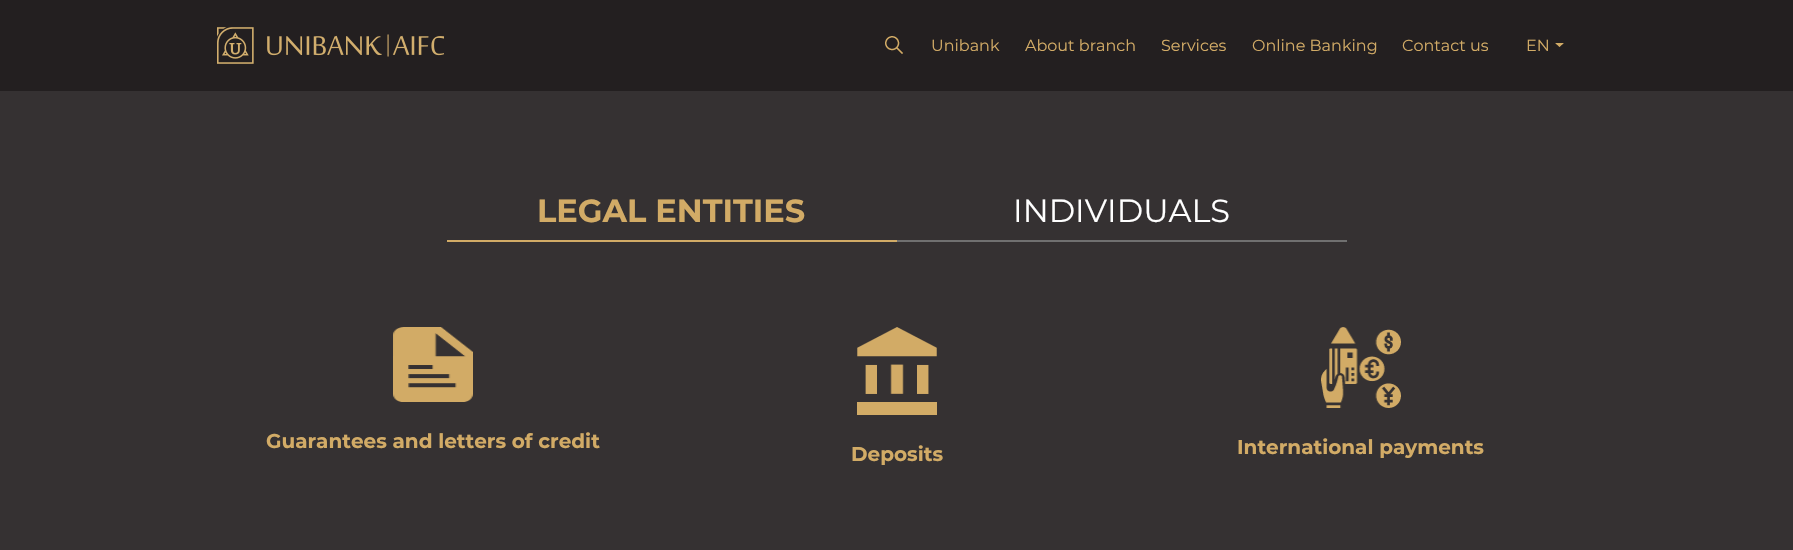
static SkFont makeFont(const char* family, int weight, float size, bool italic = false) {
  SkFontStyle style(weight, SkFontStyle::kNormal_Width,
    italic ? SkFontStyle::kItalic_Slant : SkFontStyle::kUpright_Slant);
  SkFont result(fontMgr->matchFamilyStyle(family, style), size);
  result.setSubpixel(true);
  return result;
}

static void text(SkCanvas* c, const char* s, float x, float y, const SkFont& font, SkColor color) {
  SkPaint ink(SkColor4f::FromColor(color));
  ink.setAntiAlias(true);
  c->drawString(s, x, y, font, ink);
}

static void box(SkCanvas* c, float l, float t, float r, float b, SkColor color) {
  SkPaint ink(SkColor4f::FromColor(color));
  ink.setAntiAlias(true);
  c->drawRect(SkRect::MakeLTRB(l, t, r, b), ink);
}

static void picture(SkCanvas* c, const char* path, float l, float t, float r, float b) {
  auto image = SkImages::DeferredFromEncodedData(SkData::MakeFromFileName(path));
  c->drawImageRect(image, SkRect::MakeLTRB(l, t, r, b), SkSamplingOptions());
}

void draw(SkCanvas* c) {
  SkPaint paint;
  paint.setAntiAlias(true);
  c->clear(0xff353132);
  box(c, 0, 0, 1793, 91, 0xff231f20);
  picture(c, "img_01.png", 217, 27, 444, 64);
  picture(c, "img_02.png", 885, 36, 903, 54);
  SkFont face1 = makeFont("Montserrat", 400, 16);
  text(c, "Unibank", 931, 51, face1, 0xffd2ab66);
  text(c, "About branch", 1025, 51, face1, 0xffd2ab66);
  text(c, "Services", 1161, 51, face1, 0xffd2ab66);
  text(c, "Online Banking", 1252, 51, face1, 0xffd2ab66);
  text(c, "Contact us", 1402, 51, face1, 0xffd2ab66);
  text(c, "EN", 1526, 51, face1, 0xffd2ab66);
  picture(c, "img_03.png", 1555, 43, 1564, 47);
  box(c, 447, 240, 897, 242, 0xffd2ab66);
  SkFont face2 = makeFont("Montserrat", 700, 32);
  text(c, "LEGAL ENTITIES", 537, 222, face2, 0xffd2ab66);
  box(c, 897, 240, 1347, 242, 0xff707070);
  SkFont face3 = makeFont("Montserrat", 400, 32);
  text(c, "INDIVIDUALS", 1013, 222, face3, 0xffffffff);
  picture(c, "img_04.png", 393, 327, 473, 402);
  SkFont face4 = makeFont("Montserrat", 700, 20);
  text(c, "Guarantees and letters of credit", 266, 448, face4, 0xffd2ab66);
  picture(c, "img_05.png", 857, 327, 937, 415);
  text(c, "Deposits", 851, 461, face4, 0xffd2ab66);
  picture(c, "img_06.png", 1321, 327, 1401, 408);
  text(c, "International payments", 1237, 454, face4, 0xffd2ab66);
}
